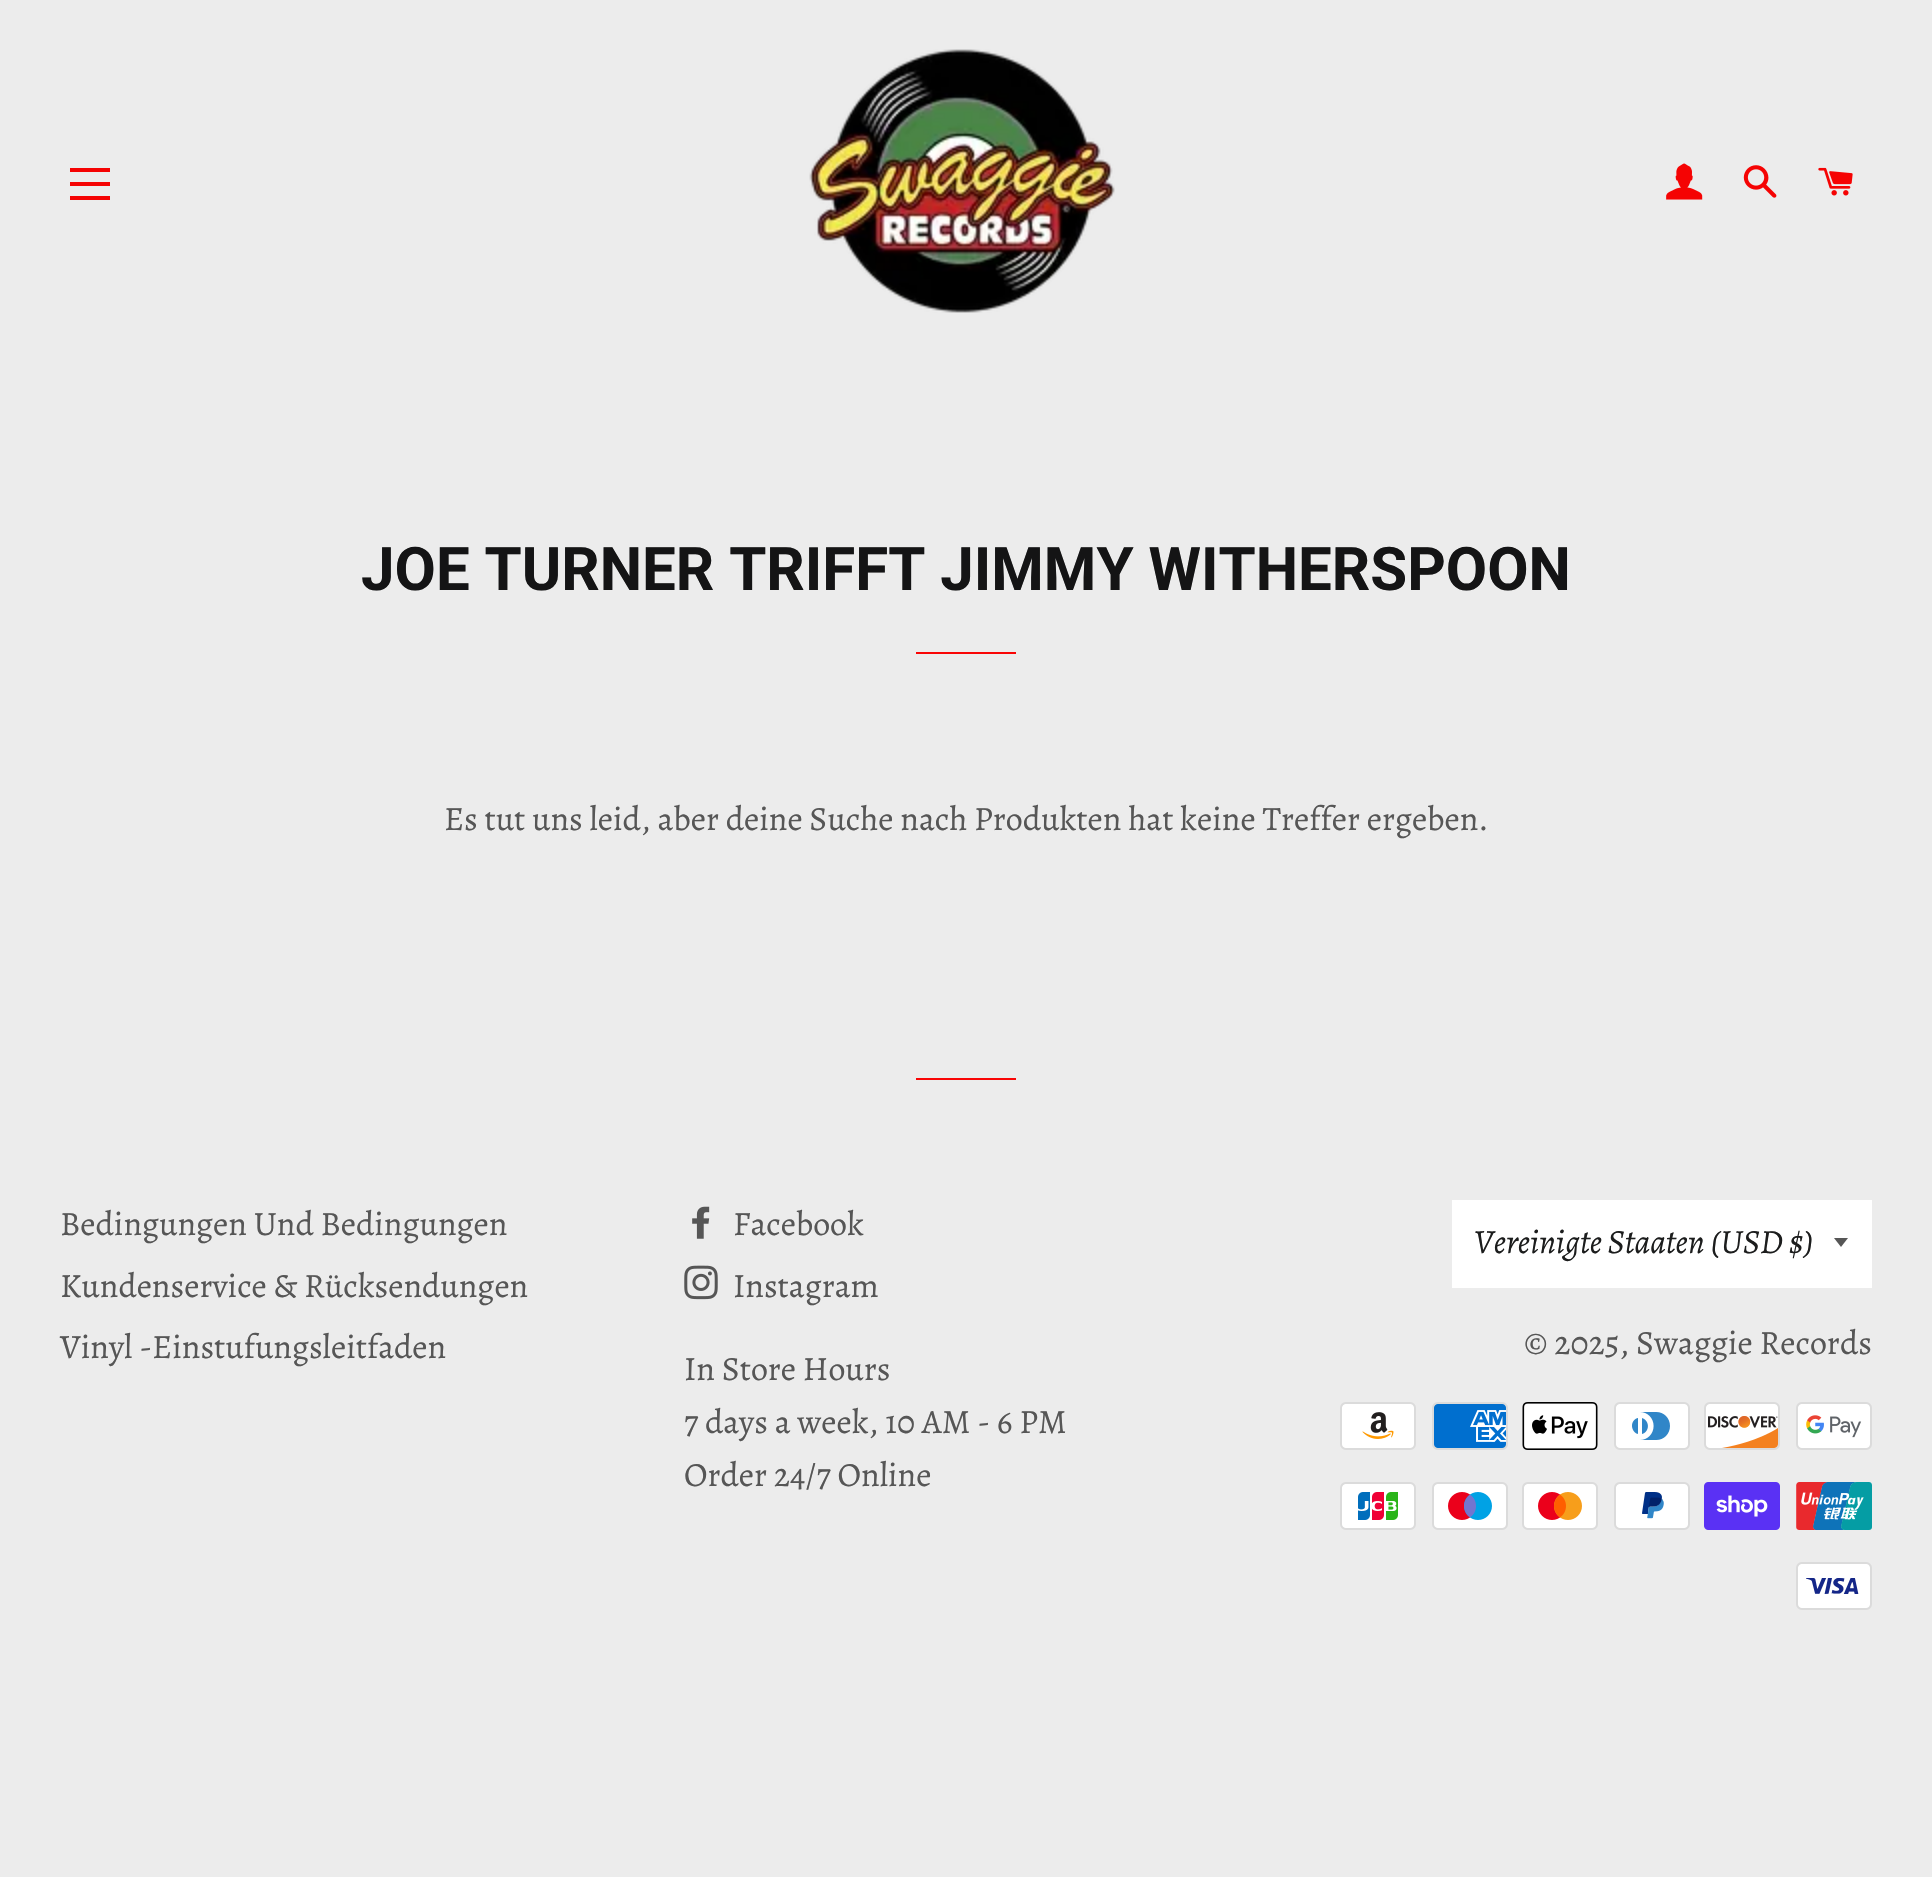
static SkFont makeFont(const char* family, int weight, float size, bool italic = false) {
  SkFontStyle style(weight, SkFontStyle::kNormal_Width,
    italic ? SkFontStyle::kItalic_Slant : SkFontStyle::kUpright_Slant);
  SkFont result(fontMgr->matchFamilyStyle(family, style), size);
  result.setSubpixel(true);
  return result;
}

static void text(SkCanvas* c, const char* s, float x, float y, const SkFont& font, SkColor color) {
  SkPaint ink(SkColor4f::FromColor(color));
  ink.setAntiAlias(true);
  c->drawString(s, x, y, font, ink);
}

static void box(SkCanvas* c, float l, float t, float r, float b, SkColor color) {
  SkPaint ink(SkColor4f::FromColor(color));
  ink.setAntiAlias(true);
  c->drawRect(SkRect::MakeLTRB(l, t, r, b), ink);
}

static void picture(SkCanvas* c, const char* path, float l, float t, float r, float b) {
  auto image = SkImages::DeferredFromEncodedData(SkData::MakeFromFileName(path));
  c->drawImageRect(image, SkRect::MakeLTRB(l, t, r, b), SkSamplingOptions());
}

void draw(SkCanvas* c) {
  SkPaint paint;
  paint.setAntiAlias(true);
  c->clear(0xffececec);
  box(c, 70, 168, 110, 172, 0xfff50303);
  box(c, 70, 182, 110, 186, 0xfff50303);
  box(c, 70, 196, 110, 200, 0xfff50303);
  picture(c, "img_01.png", 809, 49, 1115, 313);
  picture(c, "img_02.png", 1666, 163, 1703, 200);
  picture(c, "img_03.png", 1743, 165, 1777, 198);
  picture(c, "img_04.png", 1818, 167, 1853, 196);
  SkFont face1 = makeFont("Roboto", 700, 60);
  text(c, "JOE TURNER TRIFFT JIMMY WITHERSPOON", 361, 590, face1, 0xff141415);
  box(c, 916, 652, 1016, 654, 0xfff90505);
  SkFont face2 = makeFont("Alegreya", 400, 34);
  text(c, "Es tut uns leid, aber deine Suche nach Produkten hat keine Treffer ergeben.", 444, 830, face2, 0xff565656);
  box(c, 916, 1078, 1016, 1080, 0xfff90505);
  text(c, "Bedingungen Und Bedingungen", 60, 1235, face2, 0xff565656);
  text(c, "Kundenservice & Rücksendungen", 60, 1297, face2, 0xff565656);
  text(c, "Vinyl -Einstufungsleitfaden", 60, 1358, face2, 0xff565656);
  picture(c, "img_05.png", 692, 1206, 710, 1239);
  text(c, "Facebook", 733, 1235, face2, 0xff565656);
  picture(c, "img_06.png", 684, 1265, 718, 1300);
  text(c, "Instagram", 733, 1297, face2, 0xff565656);
  text(c, "In Store Hours", 684, 1380, face2, 0xff565656);
  text(c, "7 days a week, 10 AM - 6 PM", 684, 1433, face2, 0xff565656);
  text(c, "Order 24/7 Online", 684, 1486, face2, 0xff565656);
  box(c, 1452, 1200, 1872, 1288, 0xffffffff);
  paint.setColor(0xff565656);
  c->drawPath(SkPathBuilder().moveTo(1834, 1238).lineTo(1841, 1247).lineTo(1848, 1238).close().detach(), paint);
  SkFont face3 = makeFont("Alegreya", 400, 34, true);
  text(c, "Vereinigte Staaten (USD $)", 1474, 1253, face3, 0xff1c1d1d);
  text(c, "© 2025, Swaggie Records", 1524, 1354, face2, 0xff565656);
  picture(c, "img_07.png", 1340, 1402, 1416, 1450);
  picture(c, "img_08.png", 1432, 1402, 1508, 1450);
  picture(c, "img_09.png", 1522, 1402, 1598, 1450);
  picture(c, "img_10.png", 1614, 1402, 1690, 1450);
  picture(c, "img_11.png", 1704, 1402, 1780, 1450);
  picture(c, "img_12.png", 1796, 1402, 1872, 1450);
  picture(c, "img_13.png", 1340, 1482, 1416, 1530);
  picture(c, "img_14.png", 1432, 1482, 1508, 1530);
  picture(c, "img_15.png", 1522, 1482, 1598, 1530);
  picture(c, "img_16.png", 1614, 1482, 1690, 1530);
  picture(c, "img_17.png", 1704, 1482, 1780, 1530);
  picture(c, "img_18.png", 1796, 1482, 1872, 1530);
  picture(c, "img_19.png", 1796, 1562, 1872, 1610);
}
